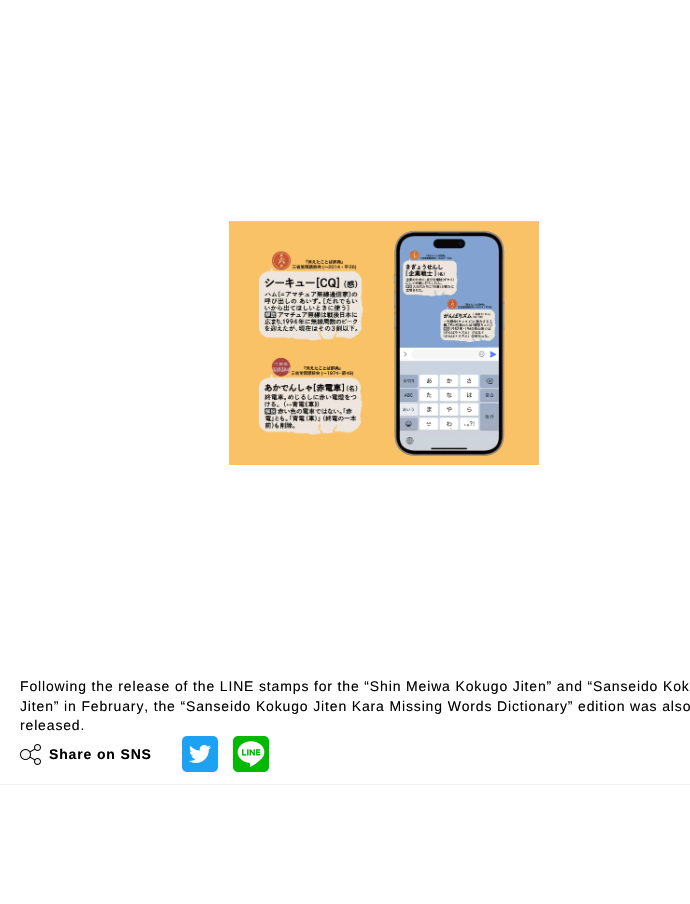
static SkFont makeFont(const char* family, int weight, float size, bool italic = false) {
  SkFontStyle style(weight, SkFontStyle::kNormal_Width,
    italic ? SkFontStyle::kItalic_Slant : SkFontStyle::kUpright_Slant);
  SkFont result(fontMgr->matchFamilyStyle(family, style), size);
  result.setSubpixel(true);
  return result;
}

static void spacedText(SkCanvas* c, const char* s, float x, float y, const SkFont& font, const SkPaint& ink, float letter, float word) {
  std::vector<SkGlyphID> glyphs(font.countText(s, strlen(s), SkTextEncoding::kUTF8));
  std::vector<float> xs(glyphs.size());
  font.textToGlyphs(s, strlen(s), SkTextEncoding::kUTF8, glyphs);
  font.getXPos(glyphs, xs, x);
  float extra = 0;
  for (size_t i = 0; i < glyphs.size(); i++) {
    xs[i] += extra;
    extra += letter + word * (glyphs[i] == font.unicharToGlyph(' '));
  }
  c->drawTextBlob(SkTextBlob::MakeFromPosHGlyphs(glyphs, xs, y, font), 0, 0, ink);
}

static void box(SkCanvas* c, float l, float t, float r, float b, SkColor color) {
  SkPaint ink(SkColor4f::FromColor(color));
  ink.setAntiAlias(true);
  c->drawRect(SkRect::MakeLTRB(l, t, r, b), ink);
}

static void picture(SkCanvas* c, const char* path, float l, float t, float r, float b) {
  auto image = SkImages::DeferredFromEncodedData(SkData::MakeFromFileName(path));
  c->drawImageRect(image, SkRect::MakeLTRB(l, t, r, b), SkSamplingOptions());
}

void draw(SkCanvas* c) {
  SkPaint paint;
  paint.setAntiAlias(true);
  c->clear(0xffffffff);
  picture(c, "img_01.png", 229, 221, 539, 465);
  SkFont face1 = makeFont("Liberation Sans", 400, 14);
  paint.setColor(0xff000000);
  spacedText(c, "Following the release of the LINE stamps for the “Shin Meiwa Kokugo Jiten” and “Sanseido Kok", 20, 691, face1, paint, 0.85f, 0);
  spacedText(c, "Jiten” in February, the “Sanseido Kokugo Jiten Kara Missing Words Dictionary” edition was also", 20, 711, face1, paint, 0.85f, 0);
  spacedText(c, "released.", 20, 730, face1, paint, 0.85f, 0);
  picture(c, "img_02.png", 20, 744, 41, 765);
  SkFont face2 = makeFont("Liberation Sans", 700, 14);
  spacedText(c, "Share on SNS", 49, 759, face2, paint, 0.85f, 0);
  picture(c, "img_03.png", 182, 736, 218, 772);
  picture(c, "img_04.png", 233, 736, 269, 772);
  box(c, 0, 784, 690, 785, 0xffeeeeee);
}
